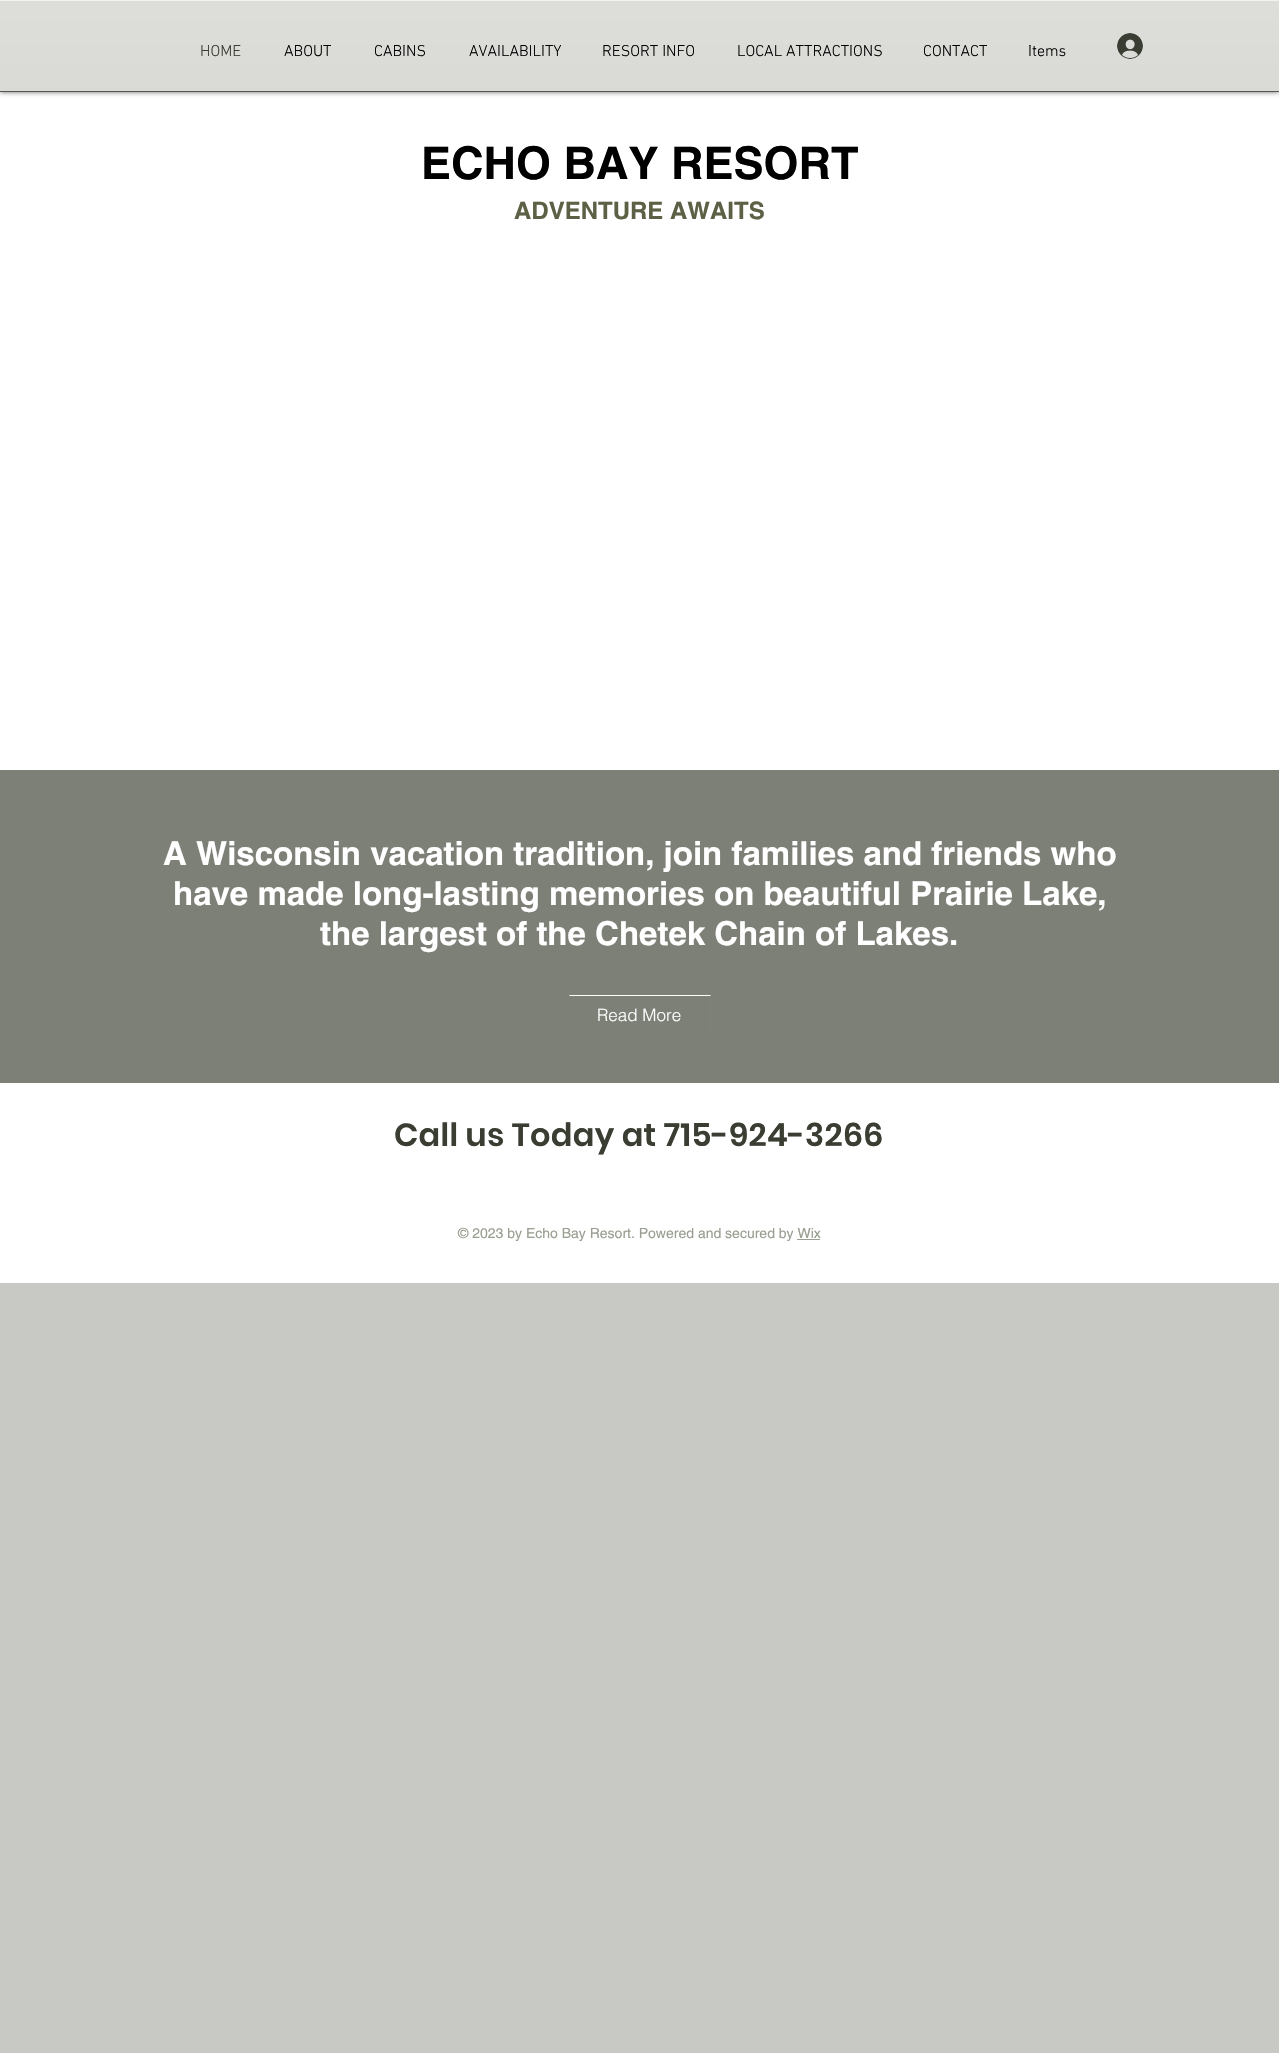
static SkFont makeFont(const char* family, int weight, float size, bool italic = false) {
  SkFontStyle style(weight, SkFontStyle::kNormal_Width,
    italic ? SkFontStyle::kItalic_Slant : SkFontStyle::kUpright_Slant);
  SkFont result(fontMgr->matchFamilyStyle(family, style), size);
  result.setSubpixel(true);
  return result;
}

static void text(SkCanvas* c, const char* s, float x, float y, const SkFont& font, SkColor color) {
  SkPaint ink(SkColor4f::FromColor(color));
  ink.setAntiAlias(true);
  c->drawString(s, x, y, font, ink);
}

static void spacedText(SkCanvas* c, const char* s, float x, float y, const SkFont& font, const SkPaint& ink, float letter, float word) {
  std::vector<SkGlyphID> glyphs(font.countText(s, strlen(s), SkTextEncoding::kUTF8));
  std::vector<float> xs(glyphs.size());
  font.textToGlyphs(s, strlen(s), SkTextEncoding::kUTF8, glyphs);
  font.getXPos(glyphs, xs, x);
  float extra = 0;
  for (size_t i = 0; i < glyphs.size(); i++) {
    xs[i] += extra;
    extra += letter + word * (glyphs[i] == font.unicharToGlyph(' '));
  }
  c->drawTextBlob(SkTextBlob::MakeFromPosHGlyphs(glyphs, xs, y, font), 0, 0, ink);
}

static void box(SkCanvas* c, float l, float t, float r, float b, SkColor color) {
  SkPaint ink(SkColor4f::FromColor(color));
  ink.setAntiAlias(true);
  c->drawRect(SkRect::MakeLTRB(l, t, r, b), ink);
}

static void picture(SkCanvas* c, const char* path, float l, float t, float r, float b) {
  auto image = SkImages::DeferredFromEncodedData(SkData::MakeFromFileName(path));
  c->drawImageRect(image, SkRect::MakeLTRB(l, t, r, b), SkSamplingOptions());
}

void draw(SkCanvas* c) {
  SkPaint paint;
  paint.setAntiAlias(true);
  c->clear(0xffc8c9c5);
  box(c, 0, 92, 1279, 770, 0xffffffff);
  paint.setColor(0x99000000);
  paint.setMaskFilter(SkMaskFilter::MakeBlur(kNormal_SkBlurStyle, 2.5f));
  c->drawRect(SkRect::MakeLTRB(0, 0, 1279, 92), paint);
  paint.setMaskFilter(nullptr);
  box(c, 0, 1, 1279, 91, 0xffd2d3ce);
  picture(c, "img_01.png", 0, 1, 1279, 91);
  box(c, 0, 91, 1279, 92, 0xff575756);
  box(c, 0, 0, 1279, 1, 0xfff2f2f0);
  SkFont face1 = makeFont("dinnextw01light", 300, 16);
  text(c, "HOME", 200, 56, face1, 0xff393d32);
  text(c, "ABOUT", 284, 56, face1, 0xff000000);
  text(c, "CABINS", 374, 56, face1, 0xff000000);
  text(c, "AVAILABILITY", 469, 56, face1, 0xff000000);
  text(c, "RESORT INFO", 602, 56, face1, 0xff000000);
  text(c, "LOCAL ATTRACTIONS", 737, 56, face1, 0xff000000);
  text(c, "CONTACT", 923, 56, face1, 0xff000000);
  text(c, "Items", 1028, 56, face1, 0xff000000);
  picture(c, "img_02.png", 1117, 33, 1143, 59);
  SkFont face2 = makeFont("helvetica", 700, 45);
  text(c, "ECHO BAY RESORT", 421, 179, face2, 0xff000000);
  SkFont face3 = makeFont("helvetica", 700, 24);
  text(c, "ADVENTURE AWAITS", 514, 219, face3, 0xff5c6146);
  box(c, 0, 770, 1279, 1083, 0xff7d8077);
  SkFont face4 = makeFont("helvetica", 700, 33);
  text(c, "A Wisconsin vacation tradition, join families and friends who", 163, 865, face4, 0xffffffff);
  text(c, "have made long-lasting memories on beautiful Prairie Lake,", 173, 905, face4, 0xffffffff);
  text(c, "the largest of the Chetek Chain of Lakes.", 320, 945, face4, 0xffffffff);
  paint.setColor(0xffffffff);
  c->drawPath(SkPathBuilder().moveTo(569, 995).lineTo(711, 995).lineTo(710, 996).lineTo(570, 996).close().detach(), paint);
  paint.setColor(0x08ffffff);
  c->drawPath(SkPathBuilder().moveTo(711, 995).lineTo(711, 1035).lineTo(710, 1034).lineTo(710, 996).close().detach(), paint);
  SkFont face5 = makeFont("helvetica", 300, 17);
  text(c, "Read More", 597, 1021, face5, 0xffffffff);
  box(c, 0, 1083, 1279, 1283, 0xffffffff);
  SkFont face6 = makeFont("Poppins", 600, 32);
  paint.setColor(0xff393d32);
  spacedText(c, "Call us Today at 715-924-3266", 394, 1146, face6, paint, 0.3f, 0);
  SkFont face7 = makeFont("helvetica", 400, 14);
  text(c, "© 2023 by Echo Bay Resort. Powered and secured by Wix", 458, 1238, face7, 0xff989e90);
  box(c, 797, 1239, 820, 1240, 0xff989e90);
}
